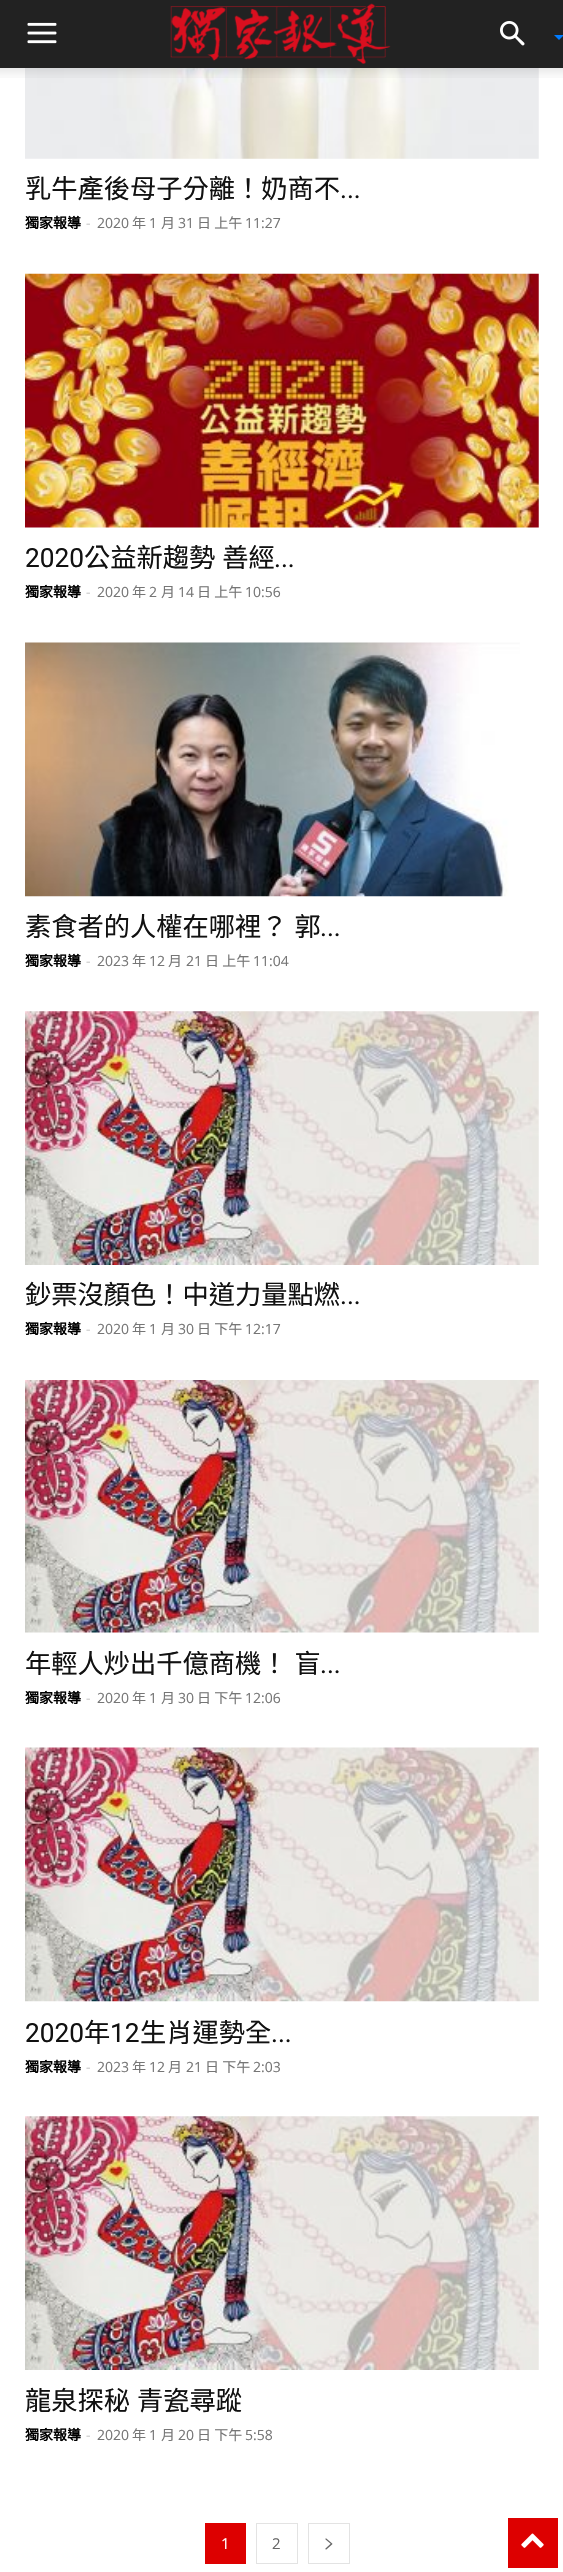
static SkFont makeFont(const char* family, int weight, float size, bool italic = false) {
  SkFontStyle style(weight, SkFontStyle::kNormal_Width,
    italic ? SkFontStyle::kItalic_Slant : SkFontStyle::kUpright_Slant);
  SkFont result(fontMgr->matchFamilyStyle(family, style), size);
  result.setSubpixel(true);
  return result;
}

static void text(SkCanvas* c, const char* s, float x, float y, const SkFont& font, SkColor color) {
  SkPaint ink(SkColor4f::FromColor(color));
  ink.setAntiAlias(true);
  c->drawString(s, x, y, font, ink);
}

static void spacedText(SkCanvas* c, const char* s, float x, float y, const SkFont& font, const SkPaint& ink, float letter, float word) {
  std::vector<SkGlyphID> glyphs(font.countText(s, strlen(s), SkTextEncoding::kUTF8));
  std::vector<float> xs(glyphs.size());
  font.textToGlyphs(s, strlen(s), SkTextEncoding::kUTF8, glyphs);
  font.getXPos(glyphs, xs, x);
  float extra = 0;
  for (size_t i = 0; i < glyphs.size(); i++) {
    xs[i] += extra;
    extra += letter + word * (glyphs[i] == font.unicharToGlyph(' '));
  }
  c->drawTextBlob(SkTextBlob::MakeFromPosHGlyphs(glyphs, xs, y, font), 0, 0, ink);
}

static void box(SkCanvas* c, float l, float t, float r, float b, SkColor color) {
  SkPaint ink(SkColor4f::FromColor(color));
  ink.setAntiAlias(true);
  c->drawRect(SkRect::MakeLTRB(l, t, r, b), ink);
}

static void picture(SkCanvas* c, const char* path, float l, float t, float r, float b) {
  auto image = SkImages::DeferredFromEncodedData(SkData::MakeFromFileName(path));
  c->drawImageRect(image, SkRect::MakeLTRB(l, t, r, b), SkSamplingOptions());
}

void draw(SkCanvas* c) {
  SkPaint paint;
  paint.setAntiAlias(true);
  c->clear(0xffffffff);
  box(c, 0, 0, 563, 68, 0xff222222);
  picture(c, "img_01.png", 27, 22, 57, 44);
  picture(c, "img_02.png", 170, 3, 391, 64);
  picture(c, "img_03.png", 500, 21, 525, 46);
  paint.setColor(0xff007bff);
  c->drawPath(SkPathBuilder().moveTo(554, 35).lineTo(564, 35).lineTo(559, 40).close().detach(), paint);
  picture(c, "img_05.png", 25, 68, 539, 159);
  picture(c, "img_04.png", 0, 68, 563, 78);
  SkFont face1 = makeFont("Noto Sans CJK TC", 400, 26.25f);
  text(c, "乳牛產後母子分離！奶商不", 25, 198, face1, 0xff111111);
  SkFont face2 = makeFont("Roboto", 400, 26.25f);
  text(c, "...", 340, 198, face2, 0xff111111);
  SkFont face3 = makeFont("Noto Sans CJK TC", 700, 14);
  text(c, "獨家報導", 25, 228, face3, 0xff000000);
  SkFont face4 = makeFont("Open Sans", 400, 14);
  text(c, "-", 86, 228, face4, 0xffcccccc);
  text(c, "2020", 97, 228, face4, 0xff767676);
  SkFont face5 = makeFont("Noto Sans CJK TC", 400, 14);
  text(c, "年", 132, 228, face5, 0xff767676);
  text(c, "1", 149, 228, face4, 0xff767676);
  text(c, "月", 161, 228, face5, 0xff767676);
  text(c, "31", 178, 228, face4, 0xff767676);
  text(c, "日 上午", 197, 228, face5, 0xff767676);
  text(c, "11:27", 245, 228, face4, 0xff767676);
  picture(c, "img_06.png", 25, 273, 539, 528);
  text(c, "2020", 25, 567, face2, 0xff111111);
  paint.setColor(0xff111111);
  spacedText(c, "公益新趨勢 善經", 84, 567, face1, paint, 0, 1);
  text(c, "...", 274, 567, face2, 0xff111111);
  text(c, "獨家報導", 25, 597, face3, 0xff000000);
  text(c, "-", 86, 597, face4, 0xffcccccc);
  text(c, "2020", 97, 597, face4, 0xff767676);
  text(c, "年", 132, 597, face5, 0xff767676);
  text(c, "2", 149, 597, face4, 0xff767676);
  text(c, "月", 161, 597, face5, 0xff767676);
  text(c, "14", 178, 597, face4, 0xff767676);
  text(c, "日 上午", 197, 597, face5, 0xff767676);
  text(c, "10:56", 245, 597, face4, 0xff767676);
  picture(c, "img_07.png", 25, 642, 520, 897);
  spacedText(c, "素食者的人權在哪裡？ 郭", 25, 936, face1, paint, 0, 1);
  text(c, "...", 320, 936, face2, 0xff111111);
  text(c, "獨家報導", 25, 966, face3, 0xff000000);
  text(c, "-", 86, 966, face4, 0xffcccccc);
  text(c, "2023", 97, 966, face4, 0xff767676);
  text(c, "年", 132, 966, face5, 0xff767676);
  text(c, "12", 149, 966, face4, 0xff767676);
  text(c, "月", 168, 966, face5, 0xff767676);
  text(c, "21", 186, 966, face4, 0xff767676);
  text(c, "日 上午", 205, 966, face5, 0xff767676);
  text(c, "11:04", 253, 966, face4, 0xff767676);
  picture(c, "img_08.png", 25, 1011, 539, 1265);
  text(c, "鈔票沒顏色！中道力量點燃", 25, 1304, face1, 0xff111111);
  text(c, "...", 340, 1304, face2, 0xff111111);
  text(c, "獨家報導", 25, 1334, face3, 0xff000000);
  text(c, "-", 86, 1334, face4, 0xffcccccc);
  text(c, "2020", 97, 1334, face4, 0xff767676);
  text(c, "年", 132, 1334, face5, 0xff767676);
  text(c, "1", 149, 1334, face4, 0xff767676);
  text(c, "月", 161, 1334, face5, 0xff767676);
  text(c, "30", 178, 1334, face4, 0xff767676);
  text(c, "日 下午", 197, 1334, face5, 0xff767676);
  text(c, "12:17", 245, 1334, face4, 0xff767676);
  picture(c, "img_09.png", 25, 1380, 539, 1633);
  spacedText(c, "年輕人炒出千億商機！ 盲", 25, 1673, face1, paint, 0, 1);
  text(c, "...", 320, 1673, face2, 0xff111111);
  text(c, "獨家報導", 25, 1703, face3, 0xff000000);
  text(c, "-", 86, 1703, face4, 0xffcccccc);
  text(c, "2020", 97, 1703, face4, 0xff767676);
  text(c, "年", 132, 1703, face5, 0xff767676);
  text(c, "1", 149, 1703, face4, 0xff767676);
  text(c, "月", 161, 1703, face5, 0xff767676);
  text(c, "30", 178, 1703, face4, 0xff767676);
  text(c, "日 下午", 197, 1703, face5, 0xff767676);
  text(c, "12:06", 245, 1703, face4, 0xff767676);
  picture(c, "img_10.png", 25, 1747, 539, 2002);
  text(c, "2020", 25, 2042, face2, 0xff111111);
  text(c, "年", 84, 2042, face1, 0xff111111);
  text(c, "12", 110, 2042, face2, 0xff111111);
  text(c, "生肖運勢全", 140, 2042, face1, 0xff111111);
  text(c, "...", 271, 2042, face2, 0xff111111);
  text(c, "獨家報導", 25, 2072, face3, 0xff000000);
  text(c, "-", 86, 2072, face4, 0xffcccccc);
  text(c, "2023", 97, 2072, face4, 0xff767676);
  text(c, "年", 132, 2072, face5, 0xff767676);
  text(c, "12", 149, 2072, face4, 0xff767676);
  text(c, "月", 168, 2072, face5, 0xff767676);
  text(c, "21", 186, 2072, face4, 0xff767676);
  text(c, "日 下午", 205, 2072, face5, 0xff767676);
  text(c, "2:03", 253, 2072, face4, 0xff767676);
  picture(c, "img_08.png", 25, 2116, 539, 2370);
  spacedText(c, "龍泉探秘 青瓷尋蹤", 25, 2410, face1, paint, 0, 1);
  text(c, "獨家報導", 25, 2440, face3, 0xff000000);
  text(c, "-", 86, 2440, face4, 0xffcccccc);
  text(c, "2020", 97, 2440, face4, 0xff767676);
  text(c, "年", 132, 2440, face5, 0xff767676);
  text(c, "1", 149, 2440, face4, 0xff767676);
  text(c, "月", 161, 2440, face5, 0xff767676);
  text(c, "20", 178, 2440, face4, 0xff767676);
  text(c, "日 下午", 197, 2440, face5, 0xff767676);
  text(c, "5:58", 245, 2440, face4, 0xff767676);
  box(c, 205, 2523, 246, 2564, 0xffdd0000);
  SkFont face6 = makeFont("Open Sans", 400, 15);
  text(c, "1", 221, 2549, face6, 0xffffffff);
  paint.setStyle(SkPaint::kStroke_Style);
  paint.setStrokeWidth(1);
  paint.setColor(0xffe3e3e3);
  c->drawRect(SkRect::MakeLTRB(256.5f, 2523.5f, 297.5f, 2563.5f), paint);
  text(c, "2", 272, 2549, face6, 0xff666666);
  c->drawRect(SkRect::MakeLTRB(308.5f, 2523.5f, 349.5f, 2563.5f), paint);
  picture(c, "img_11.png", 325, 2538, 333, 2550);
  box(c, 508, 2518, 558, 2568, 0xffdd0000);
  picture(c, "img_12.png", 521, 2533, 544, 2548);
}
